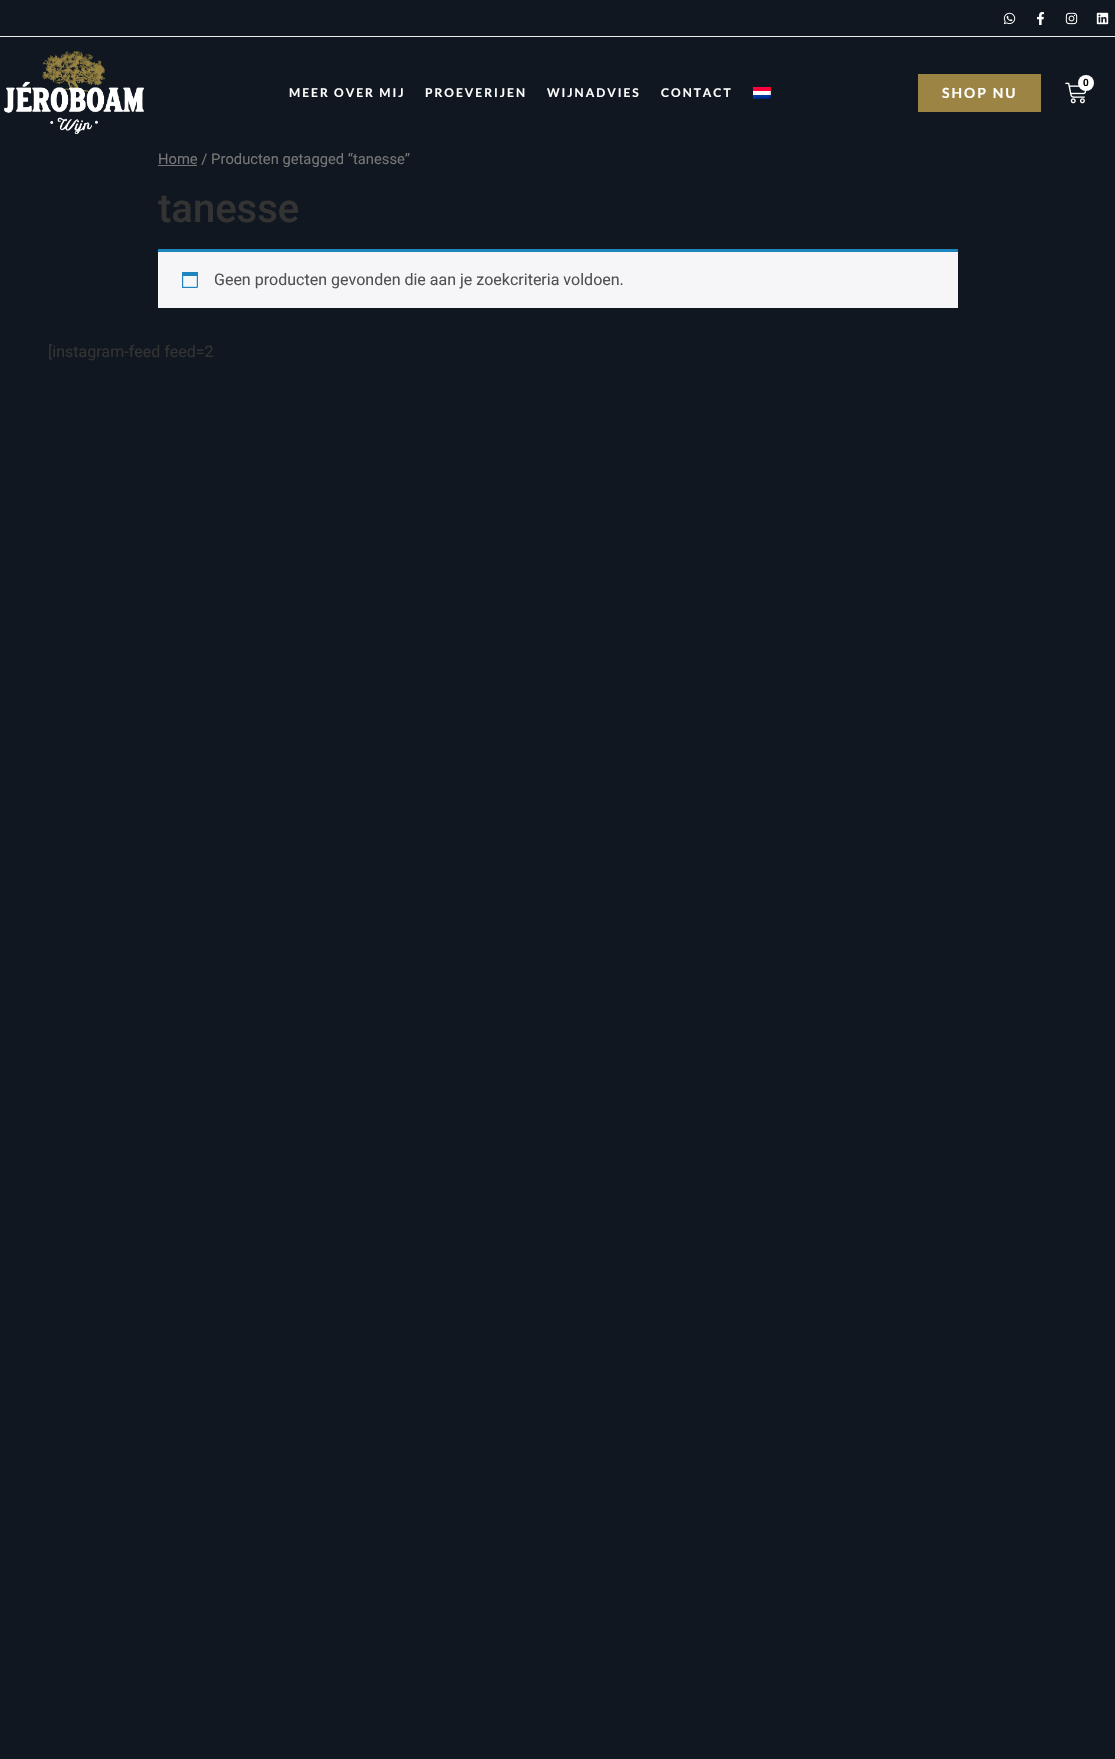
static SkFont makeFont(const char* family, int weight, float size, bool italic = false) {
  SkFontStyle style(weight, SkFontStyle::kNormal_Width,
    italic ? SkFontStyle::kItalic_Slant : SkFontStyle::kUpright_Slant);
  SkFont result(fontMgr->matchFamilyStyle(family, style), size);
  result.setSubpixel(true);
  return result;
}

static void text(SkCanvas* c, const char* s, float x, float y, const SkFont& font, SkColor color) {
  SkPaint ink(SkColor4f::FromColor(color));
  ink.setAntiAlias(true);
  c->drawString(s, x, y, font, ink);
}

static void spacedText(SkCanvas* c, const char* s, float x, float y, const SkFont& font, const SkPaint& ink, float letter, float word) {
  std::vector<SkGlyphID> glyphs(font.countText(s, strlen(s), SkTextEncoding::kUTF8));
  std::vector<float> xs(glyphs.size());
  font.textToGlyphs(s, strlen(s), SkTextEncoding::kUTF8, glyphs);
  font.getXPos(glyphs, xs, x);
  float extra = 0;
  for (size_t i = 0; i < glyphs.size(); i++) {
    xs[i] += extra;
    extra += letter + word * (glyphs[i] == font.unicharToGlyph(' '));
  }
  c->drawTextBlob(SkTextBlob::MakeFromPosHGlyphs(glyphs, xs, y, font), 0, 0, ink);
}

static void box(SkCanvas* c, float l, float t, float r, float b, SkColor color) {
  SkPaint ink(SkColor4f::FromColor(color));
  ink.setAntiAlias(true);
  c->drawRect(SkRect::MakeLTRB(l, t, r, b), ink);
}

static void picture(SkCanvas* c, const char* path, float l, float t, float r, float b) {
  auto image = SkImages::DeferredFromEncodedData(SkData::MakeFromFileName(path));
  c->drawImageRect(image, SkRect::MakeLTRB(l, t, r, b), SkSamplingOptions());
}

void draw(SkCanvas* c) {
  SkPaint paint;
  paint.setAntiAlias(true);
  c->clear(0xff101720);
  box(c, 0, 36, 1115, 37, 0xffeeeeee);
  picture(c, "img_01.png", 1003, 12, 1016, 25);
  picture(c, "img_02.png", 1037, 12, 1044, 25);
  picture(c, "img_03.png", 1065, 12, 1078, 25);
  picture(c, "img_04.png", 1096, 12, 1109, 25);
  picture(c, "img_05.png", 4, 51, 144, 134);
  SkFont face1 = makeFont("Lato", 700, 12);
  paint.setColor(0xffffffff);
  spacedText(c, "MEER OVER MIJ", 289, 97, face1, paint, 2, 0);
  spacedText(c, "PROEVERIJEN", 425, 97, face1, paint, 2, 0);
  spacedText(c, "WIJNADVIES", 547, 97, face1, paint, 2, 0);
  spacedText(c, "CONTACT", 661, 97, face1, paint, 2, 0);
  picture(c, "img_06.png", 753, 87, 771, 99);
  picture(c, "img_07.png", 1065, 82, 1087, 104);
  c->drawCircle(1086, 83, 8, paint);
  SkFont face2 = makeFont("Roboto", 600, 10);
  text(c, "0", 1083, 86, face2, 0xff000000);
  box(c, 918, 74, 1041, 112, 0xff9c8444);
  SkFont face3 = makeFont("Lato", 700, 14);
  spacedText(c, "SHOP NU", 942, 98, face3, paint, 2, 0);
  box(c, 158, 165, 197, 166, 0xff767676);
  SkFont face4 = makeFont("Roboto", 400, 14.75f);
  text(c, "Home / Producten getagged “tanesse”", 158, 164, face4, 0xff767676);
  SkFont face5 = makeFont("Roboto", 500, 40);
  text(c, "tanesse", 158, 222, face5, 0xff333333);
  box(c, 158, 252, 958, 308, 0xfff6f5f8);
  box(c, 158, 249, 958, 252, 0xff1e85be);
  picture(c, "img_08.png", 182, 272, 198, 288);
  SkFont face6 = makeFont("Roboto", 400, 16);
  text(c, "Geen producten gevonden die aan je zoekcriteria voldoen.", 214, 285, face6, 0xff515151);
  text(c, "[instagram-feed feed=2", 48, 357, face6, 0xff333333);
}
